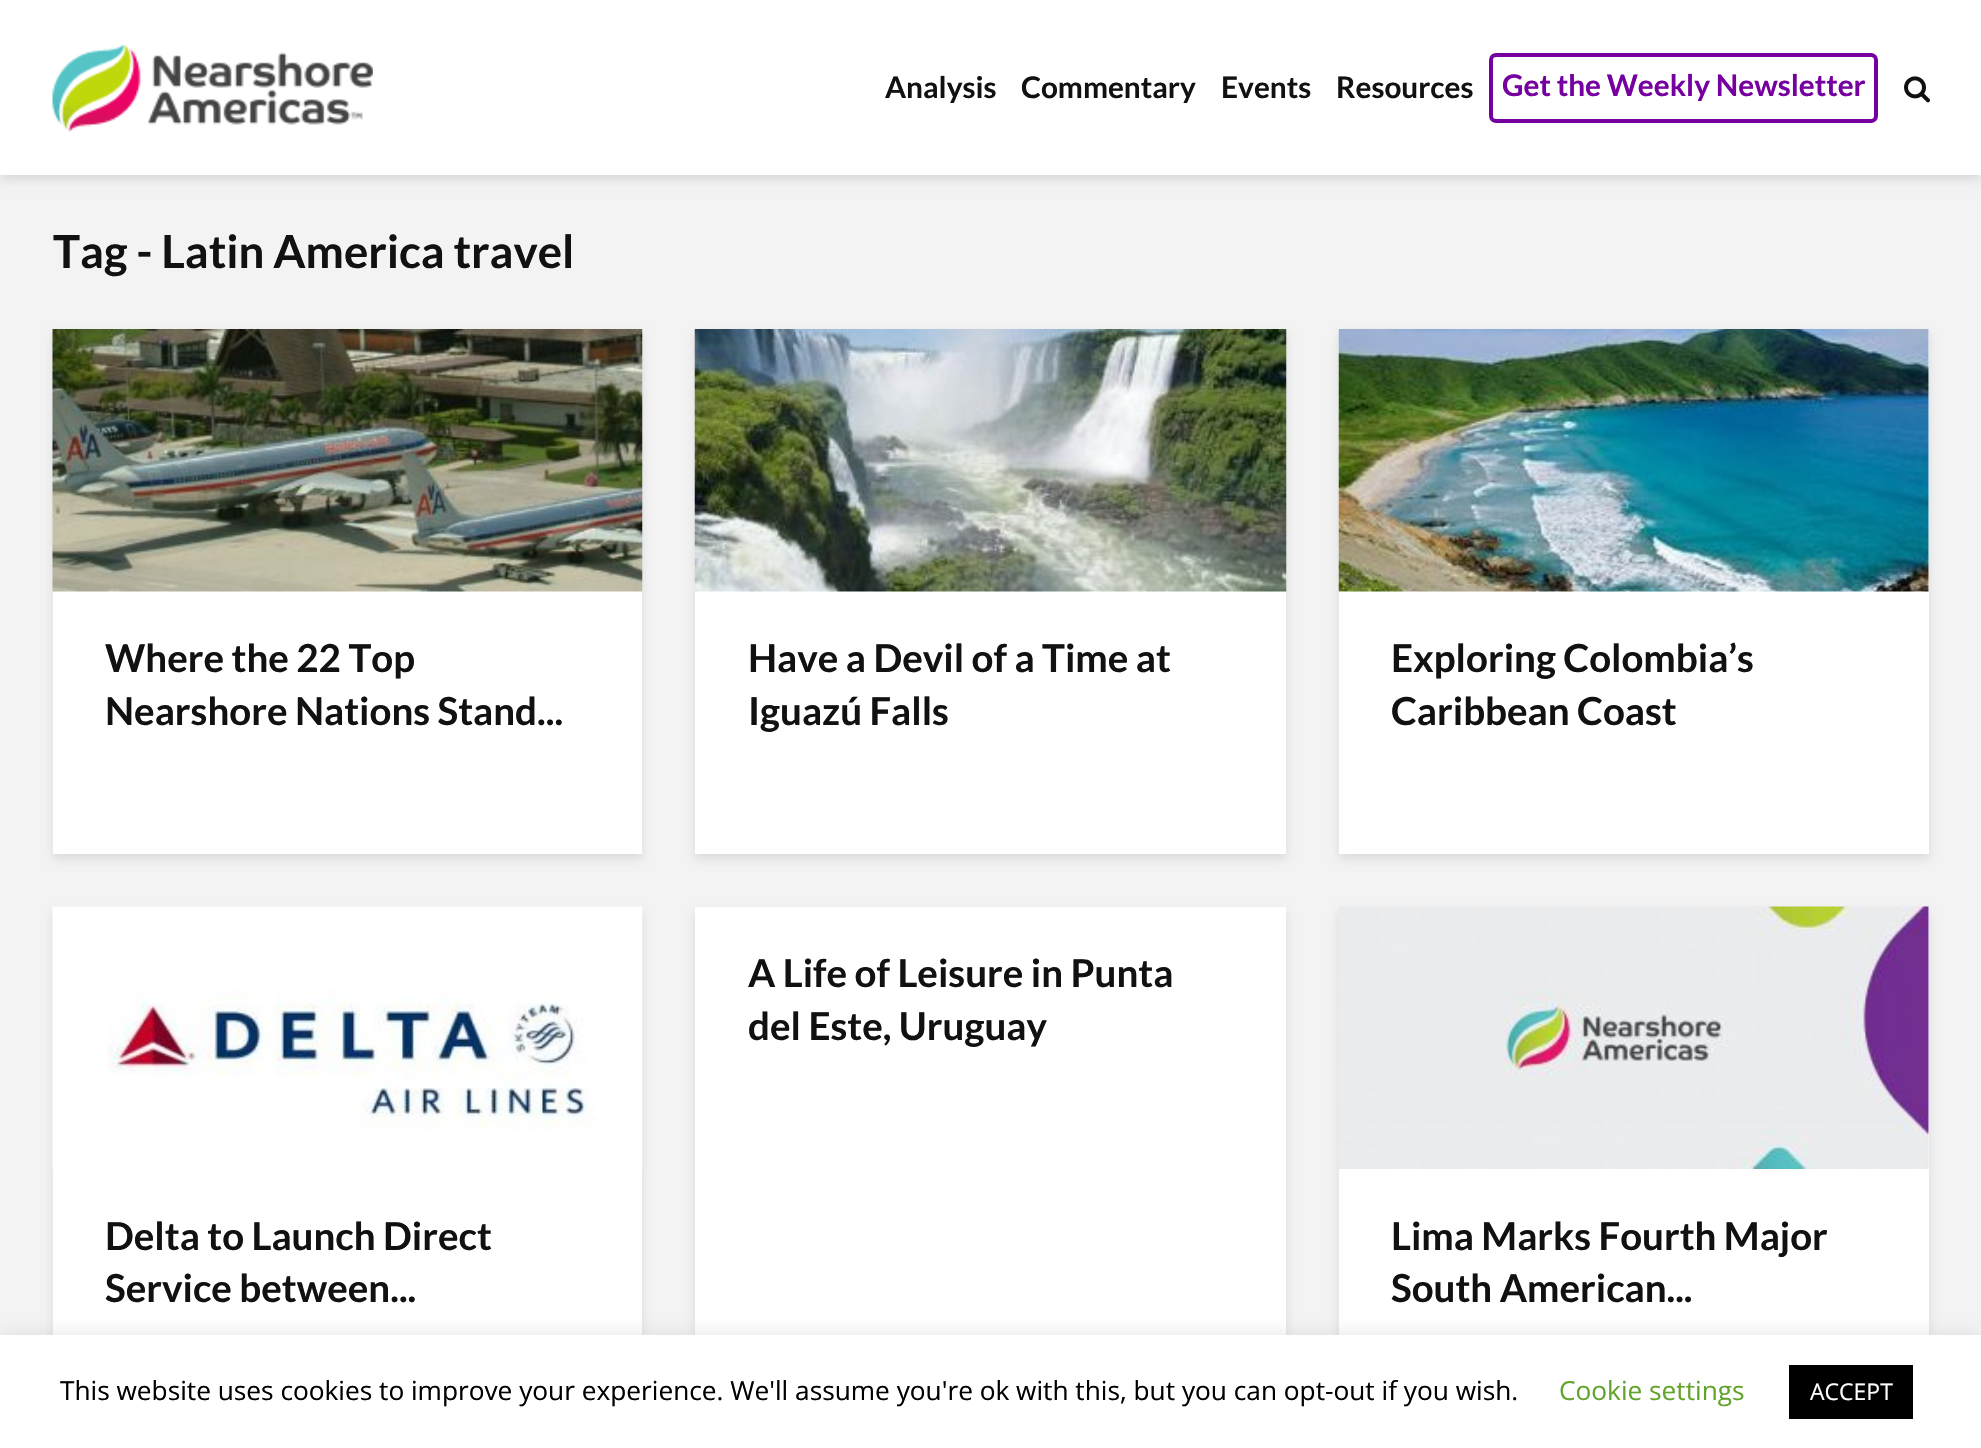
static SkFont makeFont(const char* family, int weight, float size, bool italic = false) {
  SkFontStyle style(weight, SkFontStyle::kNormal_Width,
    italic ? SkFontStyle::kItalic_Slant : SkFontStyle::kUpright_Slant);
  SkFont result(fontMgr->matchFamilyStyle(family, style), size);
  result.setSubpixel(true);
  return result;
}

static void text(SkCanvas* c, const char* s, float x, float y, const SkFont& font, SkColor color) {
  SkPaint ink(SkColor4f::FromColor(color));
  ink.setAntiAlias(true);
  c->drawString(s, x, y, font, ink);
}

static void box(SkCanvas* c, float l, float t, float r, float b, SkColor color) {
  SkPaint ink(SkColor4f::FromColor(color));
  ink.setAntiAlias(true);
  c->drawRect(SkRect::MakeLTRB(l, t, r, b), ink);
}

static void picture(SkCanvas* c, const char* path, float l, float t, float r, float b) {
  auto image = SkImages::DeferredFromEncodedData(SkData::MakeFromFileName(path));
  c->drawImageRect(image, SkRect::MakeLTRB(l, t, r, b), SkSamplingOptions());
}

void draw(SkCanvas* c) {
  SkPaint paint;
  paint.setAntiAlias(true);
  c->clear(0xfff3f3f3);
  paint.setColor(0x1a000101);
  paint.setMaskFilter(SkMaskFilter::MakeBlur(kNormal_SkBlurStyle, 4.5f));
  c->drawRect(SkRect::MakeLTRB(0, 5, 1981, 180), paint);
  paint.setMaskFilter(nullptr);
  box(c, 0, 0, 1981, 175, 0xffffffff);
  picture(c, "img_01.png", 52, 45, 373, 132);
  SkFont face1 = makeFont("Lato", 700, 29.75f);
  text(c, "Analysis", 885, 98, face1, 0xff111111);
  text(c, "Commentary", 1021, 98, face1, 0xff111111);
  text(c, "Events", 1221, 98, face1, 0xff111111);
  text(c, "Resources", 1336, 98, face1, 0xff111111);
  paint.setStyle(SkPaint::kStroke_Style);
  paint.setStrokeWidth(4);
  paint.setColor(0xff75009f);
  c->drawRoundRect(SkRect::MakeLTRB(1491, 55, 1876, 121), 5, 5, paint);
  text(c, "Get the Weekly Newsletter", 1502, 96, face1, 0xff75009f);
  picture(c, "img_02.png", 1904, 76, 1930, 103);
  SkFont face2 = makeFont("Lato", 700, 45.5f);
  text(c, "Tag - Latin America travel", 53, 268, face2, 0xff111111);
  paint.setStyle(SkPaint::kFill_Style);
  paint.setColor(0x1a000101);
  paint.setMaskFilter(SkMaskFilter::MakeBlur(kNormal_SkBlurStyle, 4.5f));
  c->drawRect(SkRect::MakeLTRB(53, 334, 642, 859), paint);
  paint.setMaskFilter(nullptr);
  box(c, 53, 591, 642, 854, 0xffffffff);
  picture(c, "img_03.png", 52, 329, 643, 592);
  SkFont face3 = makeFont("Lato", 700, 38.5f);
  text(c, "Where the 22 Top", 105, 672, face3, 0xff111111);
  text(c, "Nearshore Nations Stand...", 105, 725, face3, 0xff111111);
  paint.setMaskFilter(SkMaskFilter::MakeBlur(kNormal_SkBlurStyle, 4.5f));
  c->drawRect(SkRect::MakeLTRB(695, 334, 1286, 859), paint);
  paint.setMaskFilter(nullptr);
  box(c, 695, 591, 1286, 854, 0xffffffff);
  picture(c, "img_04.png", 694, 329, 1287, 592);
  text(c, "Have a Devil of a Time at", 748, 672, face3, 0xff111111);
  text(c, "Iguazú Falls", 748, 725, face3, 0xff111111);
  paint.setMaskFilter(SkMaskFilter::MakeBlur(kNormal_SkBlurStyle, 4.5f));
  c->drawRect(SkRect::MakeLTRB(1339, 334, 1929, 859), paint);
  paint.setMaskFilter(nullptr);
  box(c, 1339, 329, 1929, 854, 0xffffffff);
  picture(c, "img_05.png", 1338, 329, 1929, 592);
  text(c, "Exploring Colombia’s", 1391, 672, face3, 0xff111111);
  text(c, "Caribbean Coast", 1391, 725, face3, 0xff111111);
  paint.setMaskFilter(SkMaskFilter::MakeBlur(kNormal_SkBlurStyle, 4.5f));
  c->drawRect(SkRect::MakeLTRB(695, 912, 1286, 1437), paint);
  paint.setMaskFilter(nullptr);
  box(c, 695, 907, 1286, 1335, 0xffffffff);
  text(c, "A Life of Leisure in Punta", 748, 987, face3, 0xff111111);
  text(c, "del Este, Uruguay", 748, 1040, face3, 0xff111111);
  paint.setMaskFilter(SkMaskFilter::MakeBlur(kNormal_SkBlurStyle, 4.5f));
  c->drawRect(SkRect::MakeLTRB(53, 912, 642, 1437), paint);
  paint.setMaskFilter(nullptr);
  box(c, 53, 1169, 642, 1335, 0xffffffff);
  picture(c, "img_06.png", 52, 906, 643, 1169);
  text(c, "Delta to Launch Direct", 105, 1250, face3, 0xff111111);
  text(c, "Service between...", 105, 1302, face3, 0xff111111);
  paint.setMaskFilter(SkMaskFilter::MakeBlur(kNormal_SkBlurStyle, 4.5f));
  c->drawRect(SkRect::MakeLTRB(1339, 912, 1929, 1437), paint);
  paint.setMaskFilter(nullptr);
  box(c, 1339, 907, 1929, 1335, 0xffffffff);
  picture(c, "img_07.png", 1339, 906, 1929, 1169);
  text(c, "Lima Marks Fourth Major", 1391, 1250, face3, 0xff111111);
  text(c, "South American...", 1391, 1302, face3, 0xff111111);
  paint.setColor(0x4dacabab);
  paint.setMaskFilter(SkMaskFilter::MakeBlur(kNormal_SkBlurStyle, 9));
  c->drawRect(SkRect::MakeLTRB(0, 1334, 1981, 1447), paint);
  paint.setMaskFilter(nullptr);
  box(c, 0, 1335, 1981, 1448, 0xffffffff);
  SkFont face4 = makeFont("Open Sans", 400, 26.25f);
  text(c, "This website uses cookies to improve your experience. We'll assume you're ok with this, but you can opt-out if you wish.", 60, 1400, face4, 0xff000000);
  text(c, "Cookie settings", 1559, 1400, face4, 0xff62a329);
  box(c, 1789, 1365, 1913, 1419, 0xff000000);
  SkFont face5 = makeFont("Open Sans", 400, 23);
  text(c, "ACCEPT", 1810, 1400, face5, 0xffffffff);
}
